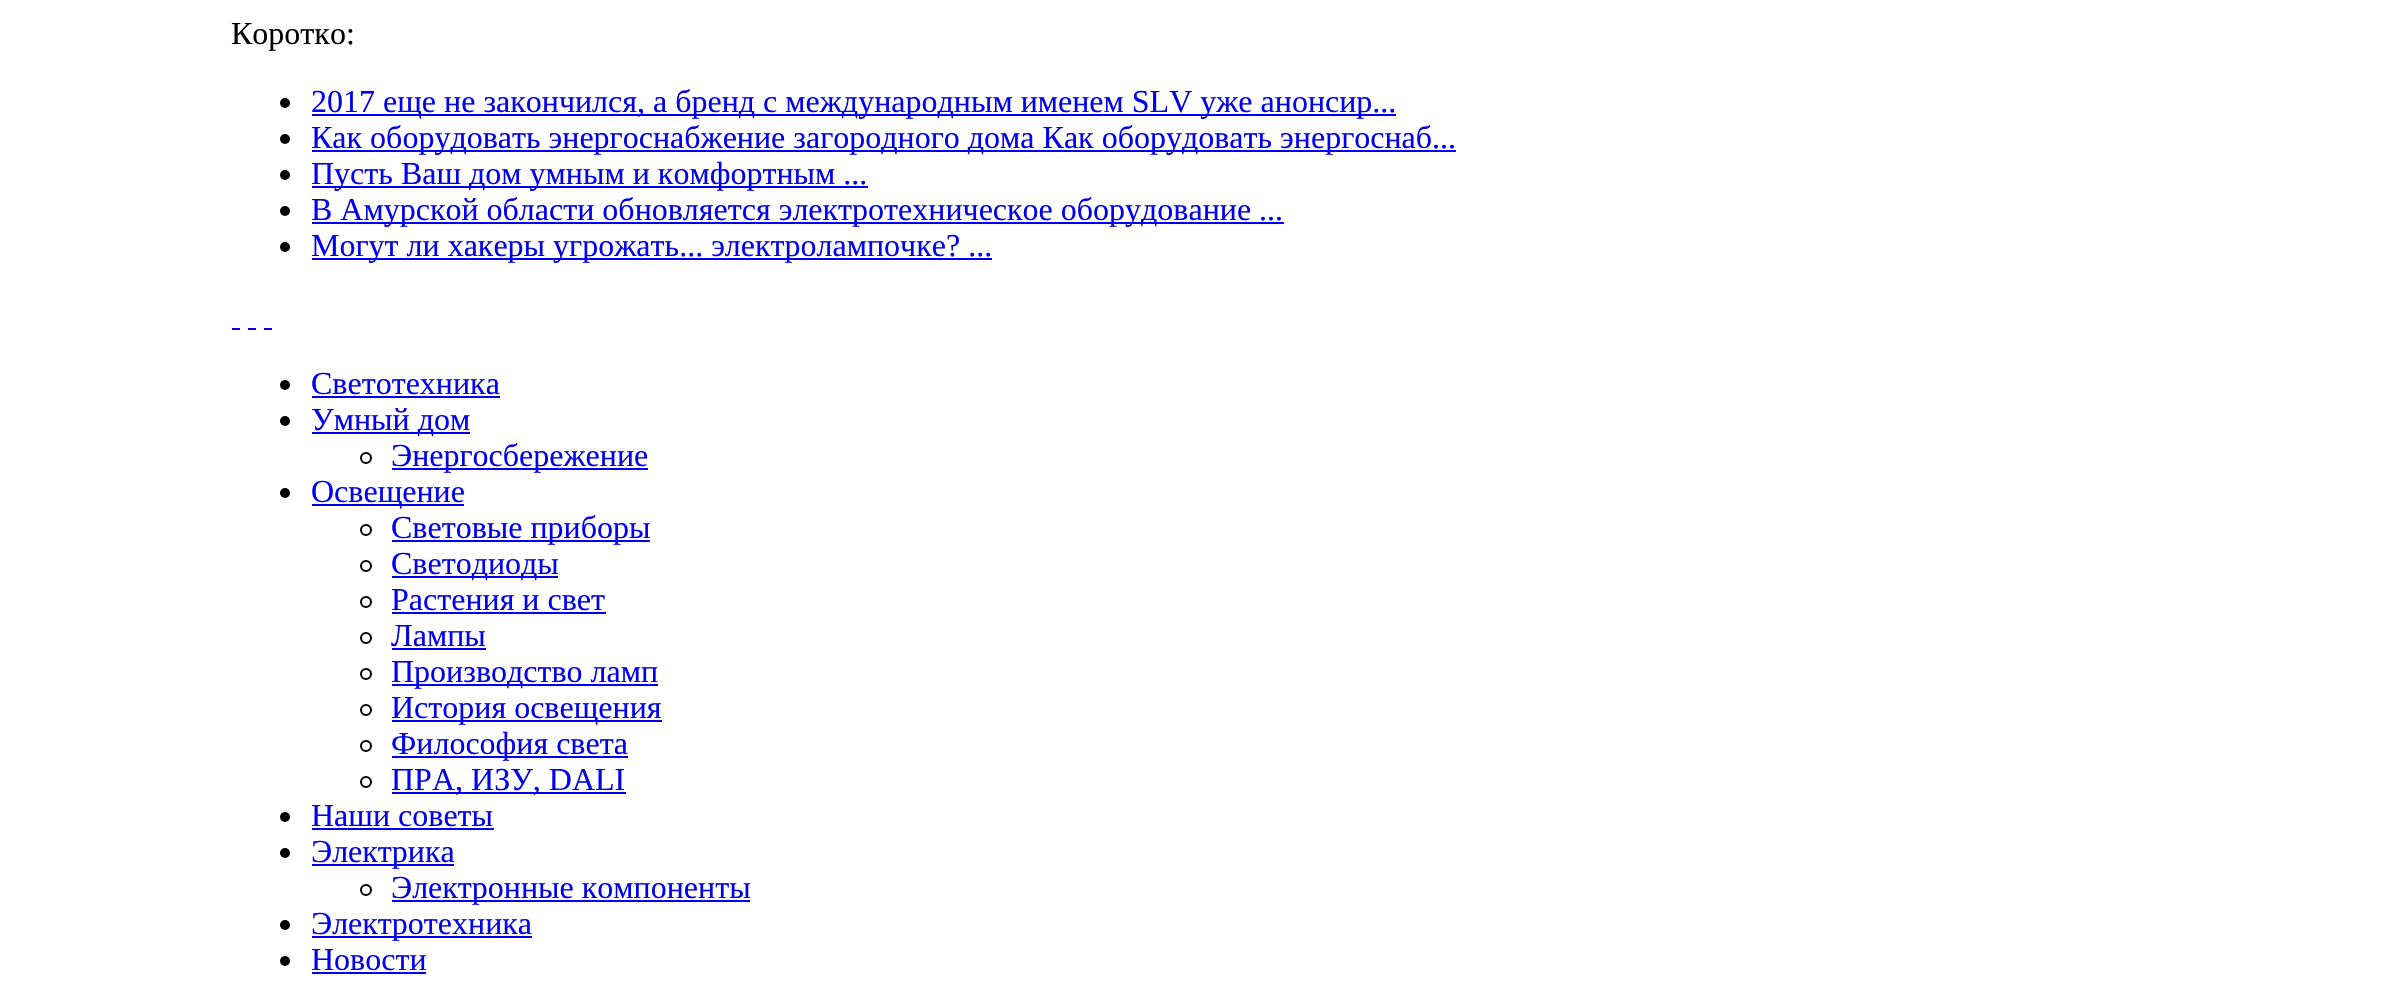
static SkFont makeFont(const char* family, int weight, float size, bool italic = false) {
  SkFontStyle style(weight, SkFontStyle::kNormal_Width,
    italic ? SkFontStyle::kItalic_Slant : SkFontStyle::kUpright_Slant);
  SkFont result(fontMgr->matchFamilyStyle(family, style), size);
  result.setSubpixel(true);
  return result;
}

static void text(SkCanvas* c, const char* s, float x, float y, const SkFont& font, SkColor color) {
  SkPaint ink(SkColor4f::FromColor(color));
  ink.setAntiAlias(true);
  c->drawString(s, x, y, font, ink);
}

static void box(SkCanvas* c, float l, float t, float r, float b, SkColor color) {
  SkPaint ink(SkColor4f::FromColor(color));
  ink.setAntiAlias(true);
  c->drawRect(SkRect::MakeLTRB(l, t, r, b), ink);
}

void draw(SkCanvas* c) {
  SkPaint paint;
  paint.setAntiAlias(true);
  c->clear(0xffffffff);
  SkFont face1 = makeFont("Liberation Serif", 400, 32);
  text(c, "Коротко:", 231, 44, face1, 0xff000000);
  paint.setColor(0xff000000);
  c->drawCircle(285, 103, 5, paint);
  box(c, 312, 114, 1396, 116, 0xff0000ee);
  text(c, "2017 еще не закончился, а бренд с международным именем SLV уже анонсир...", 311, 112, face1, 0xff0000ee);
  c->drawCircle(285, 139, 5, paint);
  box(c, 312, 150, 1456, 152, 0xff0000ee);
  text(c, "Как оборудовать энергоснабжение загородного дома Как оборудовать энергоснаб...", 311, 148, face1, 0xff0000ee);
  c->drawCircle(285, 175, 5, paint);
  box(c, 312, 186, 868, 188, 0xff0000ee);
  text(c, "Пусть Ваш дом умным и комфортным ...", 311, 184, face1, 0xff0000ee);
  c->drawCircle(285, 211, 5, paint);
  box(c, 312, 222, 1284, 224, 0xff0000ee);
  text(c, "В Амурской области обновляется электротехническое оборудование ...", 311, 220, face1, 0xff0000ee);
  c->drawCircle(285, 247, 5, paint);
  box(c, 312, 258, 992, 260, 0xff0000ee);
  text(c, "Могут ли хакеры угрожать... электролампочке? ...", 311, 256, face1, 0xff0000ee);
  box(c, 232, 328, 240, 330, 0xff0000ee);
  box(c, 248, 328, 256, 330, 0xff0000ee);
  box(c, 264, 328, 272, 330, 0xff0000ee);
  c->drawCircle(285, 385, 5, paint);
  text(c, "Светотехника", 311, 394, face1, 0xff0000ee);
  box(c, 312, 396, 500, 398, 0xff0000ee);
  c->drawCircle(285, 421, 5, paint);
  box(c, 312, 432, 470, 434, 0xff0000ee);
  text(c, "Умный дом", 311, 430, face1, 0xff0000ee);
  paint.setStyle(SkPaint::kStroke_Style);
  paint.setStrokeWidth(2);
  c->drawCircle(366, 458, 5, paint);
  box(c, 392, 468, 648, 470, 0xff0000ee);
  text(c, "Энергосбережение", 391, 466, face1, 0xff0000ee);
  paint.setStyle(SkPaint::kFill_Style);
  c->drawCircle(285, 493, 5, paint);
  box(c, 312, 504, 464, 506, 0xff0000ee);
  text(c, "Освещение", 311, 502, face1, 0xff0000ee);
  paint.setStyle(SkPaint::kStroke_Style);
  c->drawCircle(366, 530, 5, paint);
  box(c, 392, 540, 650, 542, 0xff0000ee);
  text(c, "Световые приборы", 391, 538, face1, 0xff0000ee);
  c->drawCircle(366, 566, 5, paint);
  box(c, 392, 576, 558, 578, 0xff0000ee);
  text(c, "Светодиоды", 391, 574, face1, 0xff0000ee);
  c->drawCircle(366, 602, 5, paint);
  text(c, "Растения и свет", 391, 610, face1, 0xff0000ee);
  box(c, 392, 612, 606, 614, 0xff0000ee);
  c->drawCircle(366, 638, 5, paint);
  text(c, "Лампы", 391, 646, face1, 0xff0000ee);
  box(c, 392, 648, 486, 650, 0xff0000ee);
  c->drawCircle(366, 674, 5, paint);
  box(c, 392, 684, 658, 686, 0xff0000ee);
  text(c, "Производство ламп", 391, 682, face1, 0xff0000ee);
  c->drawCircle(366, 710, 5, paint);
  box(c, 392, 720, 662, 722, 0xff0000ee);
  text(c, "История освещения", 391, 718, face1, 0xff0000ee);
  c->drawCircle(366, 746, 5, paint);
  box(c, 392, 756, 628, 758, 0xff0000ee);
  text(c, "Философия света", 391, 754, face1, 0xff0000ee);
  c->drawCircle(366, 782, 5, paint);
  box(c, 392, 792, 626, 794, 0xff0000ee);
  text(c, "ПРА, ИЗУ, DALI", 391, 790, face1, 0xff0000ee);
  paint.setStyle(SkPaint::kFill_Style);
  c->drawCircle(285, 817, 5, paint);
  text(c, "Наши советы", 311, 826, face1, 0xff0000ee);
  box(c, 312, 828, 494, 830, 0xff0000ee);
  c->drawCircle(285, 853, 5, paint);
  box(c, 312, 864, 454, 866, 0xff0000ee);
  text(c, "Электрика", 311, 862, face1, 0xff0000ee);
  paint.setStyle(SkPaint::kStroke_Style);
  c->drawCircle(366, 890, 5, paint);
  box(c, 392, 900, 750, 902, 0xff0000ee);
  text(c, "Электронные компоненты", 391, 898, face1, 0xff0000ee);
  paint.setStyle(SkPaint::kFill_Style);
  c->drawCircle(285, 925, 5, paint);
  box(c, 312, 936, 532, 938, 0xff0000ee);
  text(c, "Электротехника", 311, 934, face1, 0xff0000ee);
  c->drawCircle(285, 961, 5, paint);
  text(c, "Новости", 311, 970, face1, 0xff0000ee);
  box(c, 312, 972, 426, 974, 0xff0000ee);
}
